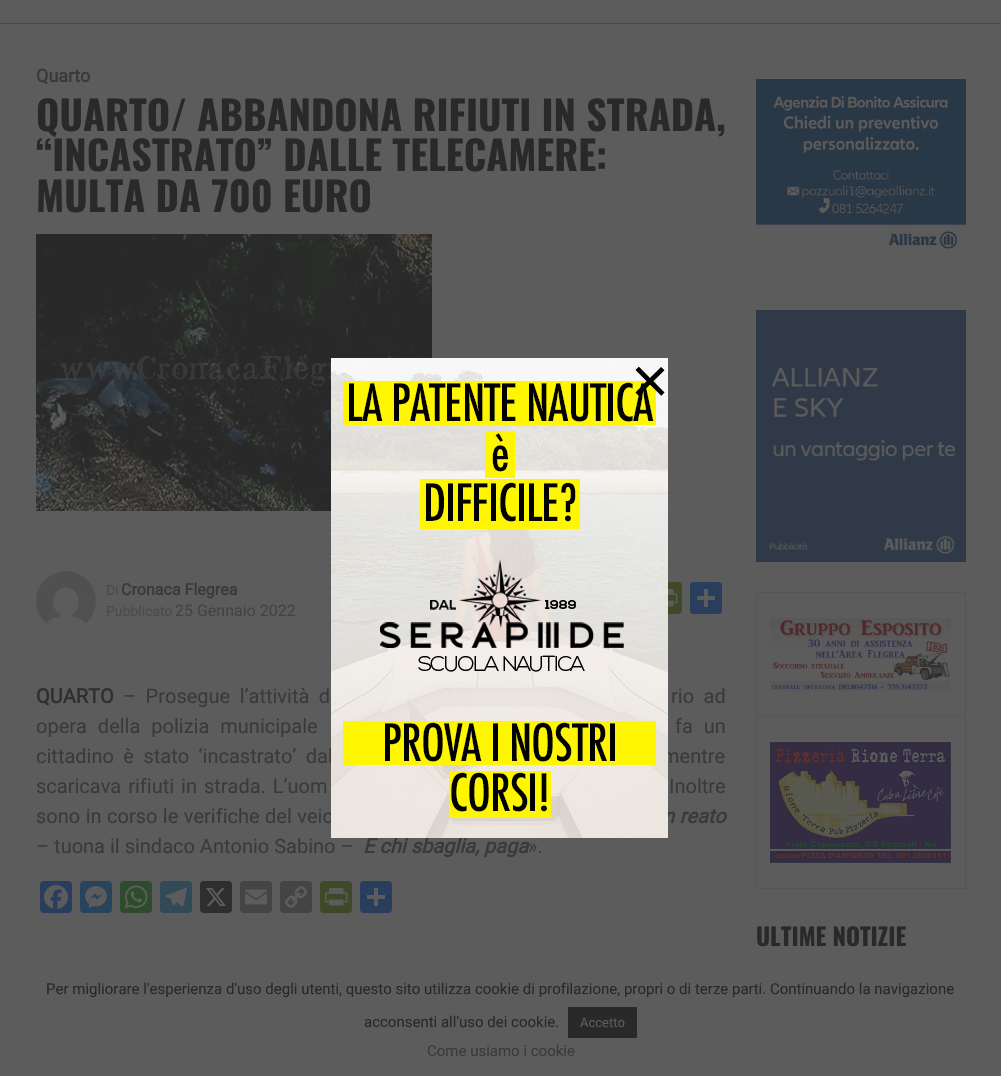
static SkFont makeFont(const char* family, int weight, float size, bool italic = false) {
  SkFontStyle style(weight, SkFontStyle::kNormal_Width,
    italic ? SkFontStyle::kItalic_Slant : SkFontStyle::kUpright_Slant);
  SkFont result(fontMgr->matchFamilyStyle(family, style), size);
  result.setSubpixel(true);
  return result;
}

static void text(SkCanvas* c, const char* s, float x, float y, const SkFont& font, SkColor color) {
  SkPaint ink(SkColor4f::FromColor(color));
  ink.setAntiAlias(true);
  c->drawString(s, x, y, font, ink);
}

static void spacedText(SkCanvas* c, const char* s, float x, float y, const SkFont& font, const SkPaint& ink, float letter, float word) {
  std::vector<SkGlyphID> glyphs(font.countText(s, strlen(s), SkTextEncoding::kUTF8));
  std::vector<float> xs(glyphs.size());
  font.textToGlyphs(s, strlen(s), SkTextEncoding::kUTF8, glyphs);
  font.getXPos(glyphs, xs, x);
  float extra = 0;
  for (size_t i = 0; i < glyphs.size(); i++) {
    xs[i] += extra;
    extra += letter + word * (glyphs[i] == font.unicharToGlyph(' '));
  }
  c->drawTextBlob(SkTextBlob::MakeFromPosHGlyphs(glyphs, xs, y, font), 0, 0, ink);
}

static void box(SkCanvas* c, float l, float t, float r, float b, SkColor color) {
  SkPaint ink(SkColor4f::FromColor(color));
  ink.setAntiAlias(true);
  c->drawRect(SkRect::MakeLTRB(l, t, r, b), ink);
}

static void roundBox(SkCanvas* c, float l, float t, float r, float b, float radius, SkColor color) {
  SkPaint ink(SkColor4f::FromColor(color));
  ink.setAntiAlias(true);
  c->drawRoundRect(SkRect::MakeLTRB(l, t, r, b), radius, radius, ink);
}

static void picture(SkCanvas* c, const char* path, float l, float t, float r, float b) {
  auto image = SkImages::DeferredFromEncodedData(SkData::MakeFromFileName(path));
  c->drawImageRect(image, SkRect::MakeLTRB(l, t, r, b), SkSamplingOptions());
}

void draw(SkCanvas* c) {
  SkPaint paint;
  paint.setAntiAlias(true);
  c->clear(0xff5c5c5c);
  box(c, 0, 23, 1001, 24, 0xff4a4a4a);
  SkFont face1 = makeFont("Roboto", 700, 18);
  text(c, "Quarto", 36, 82, face1, 0xff3a3a3a);
  SkFont face2 = makeFont("Oswald", 700, 40);
  text(c, "QUARTO/ ABBANDONA RIFIUTI IN STRADA,", 36, 131, face2, 0xff292929);
  text(c, "“INCASTRATO” DALLE TELECAMERE:", 36, 171, face2, 0xff292929);
  text(c, "MULTA DA 700 EURO", 36, 212, face2, 0xff292929);
  picture(c, "img_01.png", 36, 234, 432, 511);
  picture(c, "img_02.png", 36, 571, 96, 626);
  SkFont face3 = makeFont("Roboto", 400, 14);
  text(c, "Di", 106, 595, face3, 0xff4a4a4a);
  SkFont face4 = makeFont("Roboto", 700, 16);
  text(c, "Cronaca Flegrea", 121, 595, face4, 0xff3a3a3a);
  text(c, "Pubblicato", 106, 616, face3, 0xff4a4a4a);
  SkFont face5 = makeFont("Roboto", 400, 16);
  text(c, "25 Gennaio 2022", 175, 616, face5, 0xff434343);
  roundBox(c, 650, 582, 682, 614, 4, 0xff3f4929);
  picture(c, "img_03.png", 668, 589, 678, 607);
  roundBox(c, 690, 582, 722, 614, 4, 0xff293d5c);
  box(c, 704, 589, 708, 607, 0xff5c5c5c);
  box(c, 697, 596, 715, 600, 0xff5c5c5c);
  SkFont face6 = makeFont("Roboto", 700, 20);
  text(c, "QUARTO", 36, 703, face6, 0xff2f3031);
  SkFont face7 = makeFont("Roboto", 400, 20);
  paint.setColor(0xff3a3a3a);
  spacedText(c, "– Prosegue l’attività d", 123, 703, face7, paint, 0, 4.5f);
  spacedText(c, "rio ad", 671, 703, face7, paint, 0, 4.5f);
  spacedText(c, "opera della polizia municipale", 36, 733, face7, paint, 0, 6);
  spacedText(c, "fa un", 675, 733, face7, paint, 0, 6);
  spacedText(c, "cittadino è stato ‘incastrato’ dal", 36, 763, face7, paint, 0, 4.5f);
  spacedText(c, "mentre", 662, 763, face7, paint, 0, 4.5f);
  spacedText(c, "scaricava rifiuti in strada. L’uom", 36, 793, face7, paint, 0, 2);
  spacedText(c, "Inoltre", 669, 793, face7, paint, 0, 2);
  spacedText(c, "sono in corso le verifiche del veic", 36, 823, face7, paint, 0, 0.5f);
  SkFont face8 = makeFont("Roboto", 700, 20, true);
  spacedText(c, "n reato", 663, 823, face8, paint, 0, 0.5f);
  text(c, "– tuona il sindaco Antonio Sabino –", 36, 853, face7, 0xff3a3a3a);
  text(c, "E chi sbaglia, paga", 363, 853, face8, 0xff3a3a3a);
  text(c, "».", 528, 853, face7, 0xff3a3a3a);
  roundBox(c, 40, 881, 72, 913, 4, 0xff2a3d5c);
  picture(c, "img_04.png", 44, 885, 68, 909);
  roundBox(c, 80, 881, 112, 913, 4, 0xff29435c);
  picture(c, "img_05.png", 85, 886, 107, 908);
  roundBox(c, 120, 881, 152, 913, 4, 0xff2c4c2b);
  picture(c, "img_06.png", 124, 885, 148, 909);
  roundBox(c, 160, 881, 192, 913, 4, 0xff324a56);
  picture(c, "img_07.png", 165, 887, 187, 907);
  roundBox(c, 200, 881, 232, 913, 4, 0xff2e2e2e);
  picture(c, "img_08.png", 206, 888, 226, 907);
  roundBox(c, 240, 881, 272, 913, 4, 0xff444446);
  picture(c, "img_09.png", 245, 889, 267, 905);
  roundBox(c, 280, 881, 312, 913, 4, 0xff444446);
  picture(c, "img_10.png", 285, 886, 307, 908);
  roundBox(c, 320, 881, 352, 913, 4, 0xff3f4929);
  picture(c, "img_11.png", 325, 888, 348, 906);
  roundBox(c, 360, 881, 392, 913, 4, 0xff293d5c);
  box(c, 374, 888, 378, 906, 0xff5c5c5c);
  box(c, 367, 895, 385, 899, 0xff5c5c5c);
  picture(c, "img_12.png", 756, 79, 966, 251);
  picture(c, "img_13.png", 756, 310, 966, 562);
  box(c, 756, 592, 966, 593, 0xff535556);
  box(c, 756, 716, 966, 717, 0xff535556);
  box(c, 965, 716, 966, 889, 0xff535556);
  box(c, 965, 592, 966, 717, 0xff535556);
  box(c, 756, 888, 966, 889, 0xff535556);
  box(c, 756, 716, 757, 889, 0xff535556);
  box(c, 756, 592, 757, 717, 0xff535556);
  picture(c, "img_14.png", 770, 618, 951, 691);
  picture(c, "img_15.png", 770, 742, 951, 863);
  SkFont face9 = makeFont("Oswald", 700, 24);
  text(c, "ULTIME NOTIZIE", 756, 946, face9, 0xff292929);
  picture(c, "img_16.png", 331, 358, 668, 838);
  SkFont face10 = makeFont("Liberation Sans", 400, 65);
  text(c, "×", 631, 403, face10, 0xff000000);
  SkFont face11 = makeFont("Roboto", 400, 15);
  text(c, "Per migliorare l'esperienza d'uso degli utenti, questo sito utilizza cookie di profilazione, propri o di terze parti. Continuando la navigazione", 46, 994, face11, 0xff292929);
  text(c, "acconsenti all'uso dei cookie.", 364, 1027, face11, 0xff292929);
  box(c, 568, 1007, 637, 1038, 0xff292929);
  SkFont face12 = makeFont("Roboto", 400, 13);
  text(c, "Accetto", 580, 1027, face12, 0xff5c5c5c);
  text(c, "Come usiamo i cookie", 427, 1056, face11, 0xff3a3a3a);
}
